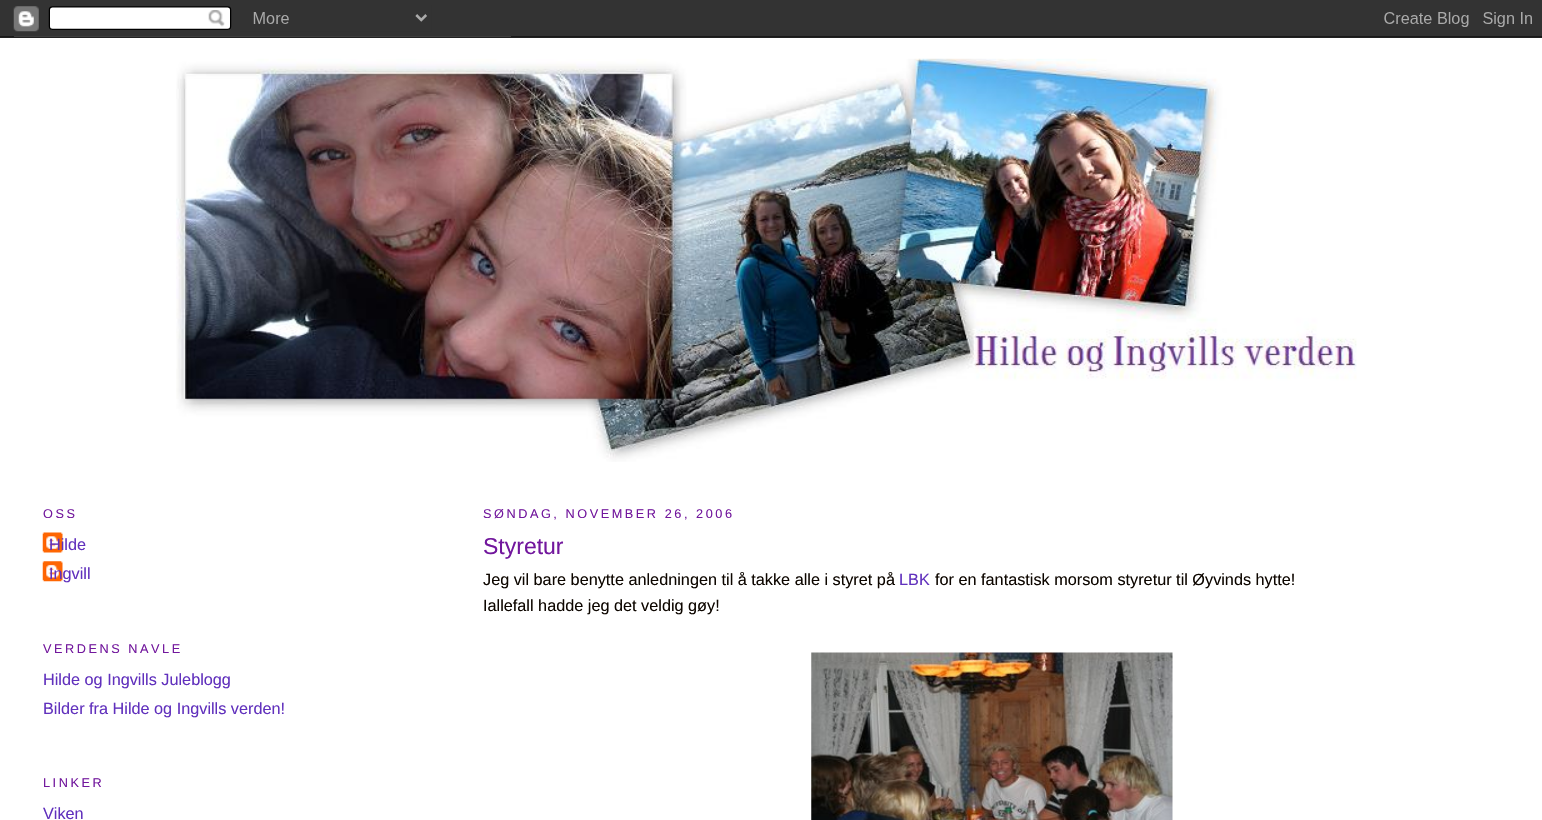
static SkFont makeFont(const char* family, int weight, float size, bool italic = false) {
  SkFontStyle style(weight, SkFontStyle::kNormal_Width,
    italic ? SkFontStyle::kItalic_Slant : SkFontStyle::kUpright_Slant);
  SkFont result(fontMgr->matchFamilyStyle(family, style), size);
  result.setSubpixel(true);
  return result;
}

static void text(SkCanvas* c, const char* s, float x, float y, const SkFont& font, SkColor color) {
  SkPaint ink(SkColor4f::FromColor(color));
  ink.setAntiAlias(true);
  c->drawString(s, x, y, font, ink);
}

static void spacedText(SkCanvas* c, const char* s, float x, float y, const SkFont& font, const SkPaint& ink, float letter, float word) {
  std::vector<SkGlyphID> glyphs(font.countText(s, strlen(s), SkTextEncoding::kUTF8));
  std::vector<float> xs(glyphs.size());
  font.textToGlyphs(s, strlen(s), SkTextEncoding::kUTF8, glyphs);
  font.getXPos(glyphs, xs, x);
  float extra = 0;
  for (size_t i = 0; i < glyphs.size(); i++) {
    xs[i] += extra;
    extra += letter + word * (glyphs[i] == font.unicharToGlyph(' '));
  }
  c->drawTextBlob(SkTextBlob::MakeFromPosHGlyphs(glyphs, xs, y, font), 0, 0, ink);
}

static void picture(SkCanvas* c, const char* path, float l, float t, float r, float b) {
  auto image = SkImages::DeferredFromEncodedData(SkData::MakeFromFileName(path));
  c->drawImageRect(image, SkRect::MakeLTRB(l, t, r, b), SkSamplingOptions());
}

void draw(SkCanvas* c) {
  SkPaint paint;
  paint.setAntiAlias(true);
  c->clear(0xffffffff);
  picture(c, "img_01.png", 0, 0, 1542, 38);
  picture(c, "img_02.png", 176, 58, 1357, 462);
  SkFont face1 = makeFont("Liberation Sans", 400, 12.7f);
  paint.setColor(0xff72179d);
  spacedText(c, "OSS", 43, 518, face1, paint, 2.55f, 0);
  picture(c, "img_03.png", 42, 532, 63, 553);
  SkFont face2 = makeFont("Liberation Sans", 400, 16.25f);
  text(c, "Hilde", 49, 550, face2, 0xff6131bd);
  picture(c, "img_04.png", 42, 561, 63, 582);
  text(c, "Ingvill", 49, 579, face2, 0xff6131bd);
  spacedText(c, "VERDENS NAVLE", 43, 653, face1, paint, 2.55f, 0);
  text(c, "Hilde og Ingvills Juleblogg", 43, 685, face2, 0xff6131bd);
  text(c, "Bilder fra Hilde og Ingvills verden!", 43, 714, face2, 0xff6131bd);
  spacedText(c, "LINKER", 43, 787, face1, paint, 2.55f, 0);
  text(c, "Viken", 43, 819, face2, 0xff6131bd);
  spacedText(c, "SØNDAG, NOVEMBER 26, 2006", 483, 518, face1, paint, 2.55f, 0);
  SkFont face3 = makeFont("Liberation Sans", 400, 23);
  text(c, "Styretur", 483, 554, face3, 0xff72179d);
  text(c, "Jeg vil bare benytte anledningen til å takke alle i styret på", 483, 585, face2, 0xff0d0600);
  text(c, "LBK", 899, 585, face2, 0xff6131bd);
  text(c, "for en fantastisk morsom styretur til Øyvinds hytte!", 935, 585, face2, 0xff0d0600);
  text(c, "Iallefall hadde jeg det veldig gøy!", 483, 611, face2, 0xff0d0600);
  picture(c, "img_05.png", 811, 652, 1173, 820);
}
